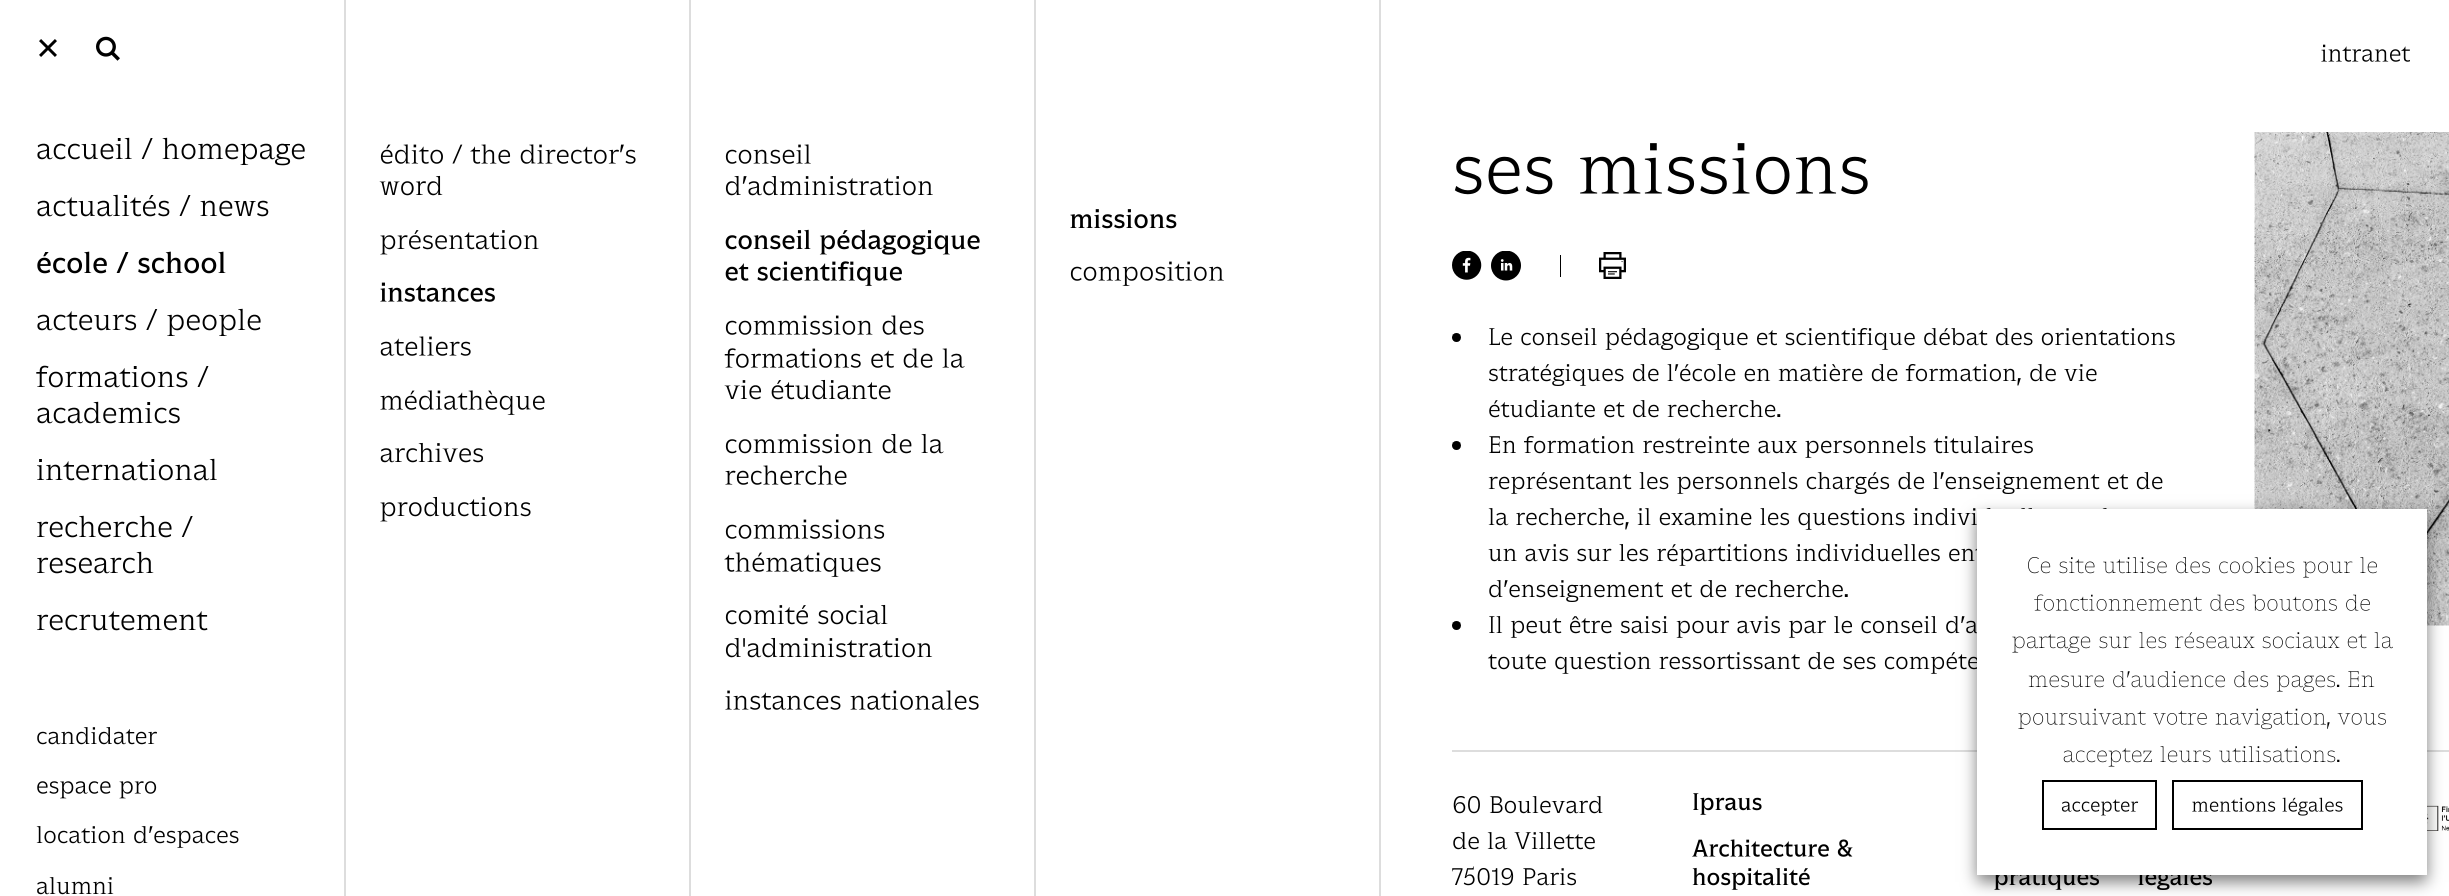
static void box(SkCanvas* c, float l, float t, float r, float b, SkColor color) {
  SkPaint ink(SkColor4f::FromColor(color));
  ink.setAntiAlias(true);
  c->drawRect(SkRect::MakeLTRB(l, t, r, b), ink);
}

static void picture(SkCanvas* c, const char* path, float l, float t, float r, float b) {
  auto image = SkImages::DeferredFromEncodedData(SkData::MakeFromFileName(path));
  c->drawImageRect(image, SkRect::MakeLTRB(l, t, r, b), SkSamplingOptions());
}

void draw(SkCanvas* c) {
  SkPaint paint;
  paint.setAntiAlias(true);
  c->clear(0xffffffff);
  box(c, 344, 0, 346, 896, 0xffdddddd);
  picture(c, "img_01.png", 37, 137, 305, 166);
  picture(c, "img_02.png", 37, 194, 269, 217);
  picture(c, "img_03.png", 37, 251, 226, 274);
  picture(c, "img_04.png", 37, 308, 261, 336);
  picture(c, "img_05.png", 36, 365, 209, 388);
  picture(c, "img_06.png", 37, 401, 180, 424);
  picture(c, "img_07.png", 37, 458, 217, 481);
  picture(c, "img_08.png", 37, 515, 193, 538);
  picture(c, "img_09.png", 37, 551, 154, 574);
  picture(c, "img_10.png", 37, 611, 208, 631);
  picture(c, "img_11.png", 37, 727, 157, 745);
  picture(c, "img_12.png", 37, 781, 157, 799);
  picture(c, "img_13.png", 36, 826, 239, 848);
  picture(c, "img_14.png", 37, 877, 114, 895);
  box(c, 689, 0, 691, 896, 0xffdddddd);
  picture(c, "img_15.png", 380, 144, 636, 164);
  picture(c, "img_16.png", 379, 175, 443, 196);
  picture(c, "img_17.png", 380, 230, 539, 255);
  picture(c, "img_18.png", 380, 282, 495, 302);
  picture(c, "img_19.png", 380, 336, 471, 356);
  picture(c, "img_20.png", 380, 390, 545, 415);
  picture(c, "img_21.png", 380, 442, 484, 463);
  picture(c, "img_22.png", 380, 496, 531, 522);
  box(c, 1034, 0, 1036, 896, 0xffdddddd);
  picture(c, "img_23.png", 725, 144, 811, 164);
  picture(c, "img_24.png", 725, 175, 933, 196);
  picture(c, "img_25.png", 725, 229, 980, 255);
  picture(c, "img_26.png", 725, 261, 902, 286);
  picture(c, "img_27.png", 725, 315, 924, 335);
  picture(c, "img_28.png", 724, 348, 965, 368);
  picture(c, "img_29.png", 724, 379, 891, 400);
  picture(c, "img_30.png", 725, 433, 944, 454);
  picture(c, "img_31.png", 725, 465, 847, 485);
  picture(c, "img_32.png", 725, 519, 885, 539);
  picture(c, "img_33.png", 724, 552, 881, 577);
  picture(c, "img_34.png", 725, 604, 888, 625);
  picture(c, "img_35.png", 725, 637, 933, 658);
  picture(c, "img_36.png", 725, 690, 979, 710);
  box(c, 1379, 0, 1381, 896, 0xffdddddd);
  picture(c, "img_37.png", 1070, 209, 1177, 229);
  picture(c, "img_38.png", 1070, 261, 1224, 286);
  picture(c, "img_39.png", 39, 39, 57, 57);
  picture(c, "img_40.png", 96, 36, 120, 61);
  picture(c, "img_41.png", 2321, 44, 2410, 62);
  picture(c, "img_42.png", 1454, 143, 1868, 195);
  picture(c, "img_43.png", 1452, 251, 1482, 280);
  picture(c, "img_44.png", 1491, 251, 1521, 281);
  box(c, 1560, 255, 1561, 277, 0xff000000);
  picture(c, "img_45.png", 1599, 252, 1626, 279);
  paint.setColor(0xff000000);
  c->drawCircle(1456.5f, 337.5f, 4.5f, paint);
  picture(c, "img_46.png", 1489, 328, 2175, 350);
  picture(c, "img_47.png", 1489, 364, 2097, 386);
  picture(c, "img_48.png", 1489, 400, 1781, 418);
  c->drawCircle(1456.5f, 445.5f, 4.5f, paint);
  picture(c, "img_49.png", 1489, 436, 2033, 458);
  picture(c, "img_50.png", 1488, 472, 2163, 494);
  picture(c, "img_51.png", 1488, 508, 2107, 530);
  picture(c, "img_52.png", 1488, 544, 1977, 566);
  picture(c, "img_53.png", 1489, 580, 1848, 602);
  c->drawCircle(1456.5f, 625.5f, 4.5f, paint);
  picture(c, "img_54.png", 1489, 616, 1977, 638);
  picture(c, "img_55.png", 1487, 652, 1977, 674);
  picture(c, "img_56.png", 2254, 132, 2449, 626);
  box(c, 1452, 750, 2449, 752, 0xffdddddd);
  picture(c, "img_57.png", 1453, 796, 1603, 814);
  picture(c, "img_58.png", 1453, 832, 1595, 850);
  picture(c, "img_59.png", 1452, 866, 1576, 886);
  picture(c, "img_60.png", 1693, 793, 1762, 815);
  picture(c, "img_61.png", 1692, 839, 1853, 857);
  picture(c, "img_62.png", 1692, 867, 1810, 890);
  picture(c, "img_63.png", 2427, 802, 2449, 834);
  picture(c, "img_64.png", 1994, 875, 2099, 890);
  picture(c, "img_65.png", 2138, 875, 2212, 890);
  paint.setColor(0x80000000);
  paint.setMaskFilter(SkMaskFilter::MakeBlur(kNormal_SkBlurStyle, 7.5f));
  c->drawRect(SkRect::MakeLTRB(1977, 516, 2427, 882), paint);
  paint.setMaskFilter(nullptr);
  box(c, 1977, 509, 2427, 875, 0xffffffff);
  picture(c, "img_66.png", 2028, 557, 2377, 578);
  picture(c, "img_67.png", 2034, 594, 2370, 611);
  picture(c, "img_68.png", 2012, 632, 2393, 653);
  picture(c, "img_69.png", 2028, 671, 2375, 692);
  picture(c, "img_70.png", 2018, 708, 2386, 730);
  picture(c, "img_71.png", 2063, 746, 2340, 767);
  paint.setStyle(SkPaint::kStroke_Style);
  paint.setStrokeWidth(2);
  paint.setColor(0xff000000);
  c->drawRect(SkRect::MakeLTRB(2043, 781, 2156, 829), paint);
  picture(c, "img_72.png", 2061, 799, 2139, 816);
  c->drawRect(SkRect::MakeLTRB(2173, 781, 2362, 829), paint);
  picture(c, "img_73.png", 2192, 797, 2343, 816);
}
